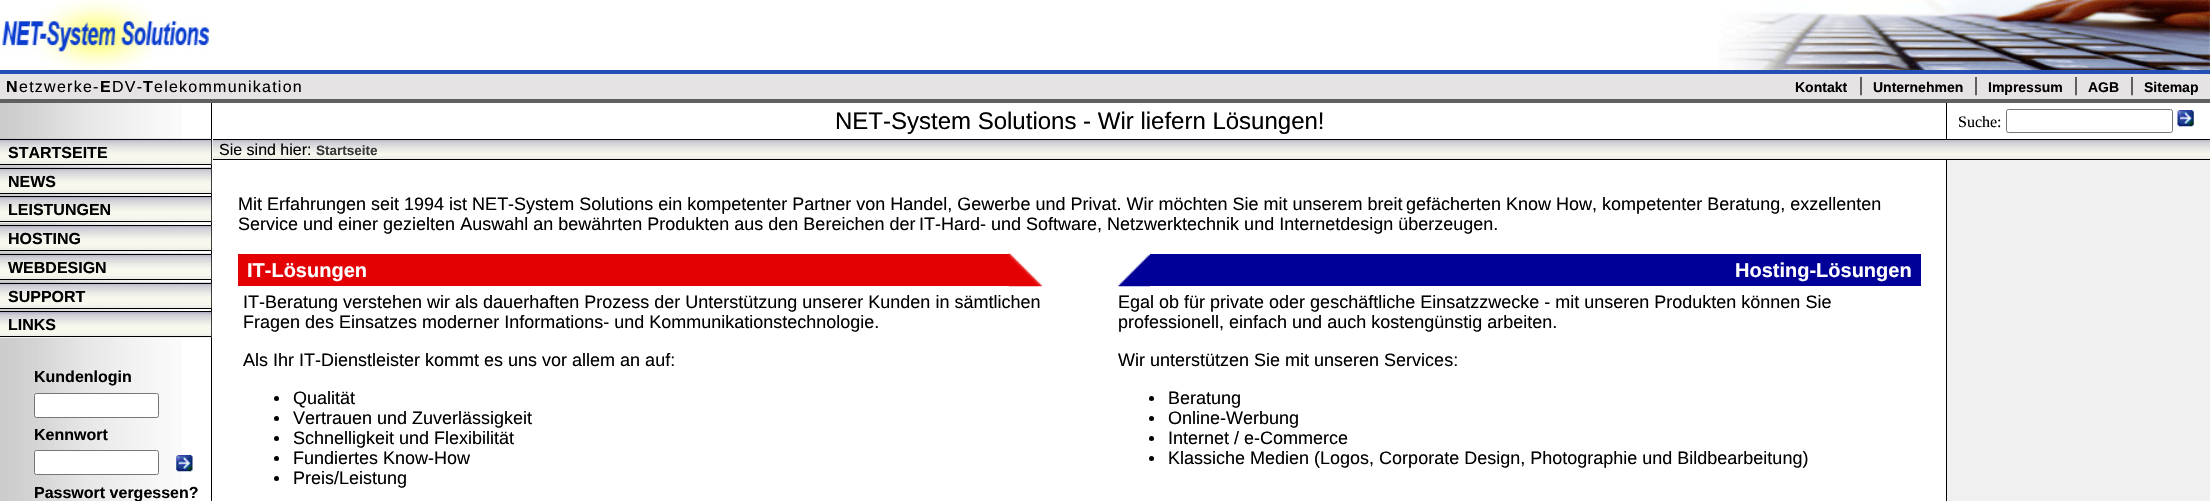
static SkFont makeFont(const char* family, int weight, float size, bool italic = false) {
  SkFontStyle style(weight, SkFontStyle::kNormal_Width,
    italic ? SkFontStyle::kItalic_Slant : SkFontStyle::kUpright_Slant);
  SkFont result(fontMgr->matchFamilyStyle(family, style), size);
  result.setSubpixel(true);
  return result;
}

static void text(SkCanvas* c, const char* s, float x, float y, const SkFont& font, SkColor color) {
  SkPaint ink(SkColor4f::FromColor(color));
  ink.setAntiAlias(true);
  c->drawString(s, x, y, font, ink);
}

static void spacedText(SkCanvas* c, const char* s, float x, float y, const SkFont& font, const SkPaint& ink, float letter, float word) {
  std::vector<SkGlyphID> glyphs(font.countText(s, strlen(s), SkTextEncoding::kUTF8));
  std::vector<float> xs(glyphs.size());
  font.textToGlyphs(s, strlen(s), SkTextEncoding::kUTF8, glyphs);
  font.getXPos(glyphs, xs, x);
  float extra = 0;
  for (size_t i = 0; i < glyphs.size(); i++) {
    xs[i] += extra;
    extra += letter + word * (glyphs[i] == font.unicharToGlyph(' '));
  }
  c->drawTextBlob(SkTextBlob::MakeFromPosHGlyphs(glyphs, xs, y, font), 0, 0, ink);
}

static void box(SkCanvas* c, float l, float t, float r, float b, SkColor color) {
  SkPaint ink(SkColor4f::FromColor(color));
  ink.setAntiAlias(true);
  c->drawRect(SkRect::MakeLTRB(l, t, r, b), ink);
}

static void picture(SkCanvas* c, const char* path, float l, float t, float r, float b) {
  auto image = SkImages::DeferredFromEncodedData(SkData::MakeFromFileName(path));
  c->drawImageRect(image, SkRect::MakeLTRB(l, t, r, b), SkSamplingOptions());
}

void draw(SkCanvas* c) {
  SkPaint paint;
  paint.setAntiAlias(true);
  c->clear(0xffffffff);
  picture(c, "img_01.png", 0, 103, 182, 501);
  picture(c, "img_02.png", 0, 0, 211, 70);
  picture(c, "img_03.png", 1719, 0, 2210, 70);
  box(c, 0, 74, 2210, 99, 0xffe5e3e3);
  box(c, 0, 70, 2210, 74, 0xff244fb4);
  box(c, 0, 99, 2210, 103, 0xff606060);
  SkFont face1 = makeFont("Liberation Sans", 700, 16);
  paint.setColor(0xff000000);
  spacedText(c, "N", 6, 92, face1, paint, 1.25f, 0);
  SkFont face2 = makeFont("Liberation Sans", 400, 16);
  spacedText(c, "etzwerke-", 19, 92, face2, paint, 1.25f, 0);
  spacedText(c, "E", 100, 92, face1, paint, 1.25f, 0);
  spacedText(c, "DV-", 112, 92, face2, paint, 1.25f, 0);
  spacedText(c, "T", 143, 92, face1, paint, 1.25f, 0);
  spacedText(c, "elekommunikation", 154, 92, face2, paint, 1.25f, 0);
  SkFont face3 = makeFont("Liberation Sans", 700, 14);
  text(c, "Kontakt", 1795, 92, face3, 0xff000000);
  SkFont face4 = makeFont("Liberation Serif", 400, 20);
  text(c, "|", 1859, 91, face4, 0xff000000);
  text(c, "Unternehmen", 1873, 92, face3, 0xff000000);
  text(c, "|", 1974, 91, face4, 0xff000000);
  text(c, "Impressum", 1988, 92, face3, 0xff000000);
  text(c, "|", 2074, 91, face4, 0xff000000);
  text(c, "AGB", 2088, 92, face3, 0xff000000);
  text(c, "|", 2130, 91, face4, 0xff000000);
  text(c, "Sitemap", 2144, 92, face3, 0xff000000);
  box(c, 211, 103, 212, 501, 0xff000000);
  SkFont face5 = makeFont("Liberation Sans", 400, 24);
  text(c, "NET-System Solutions - Wir liefern Lösungen!", 835, 129, face5, 0xff000000);
  box(c, 1946, 103, 1947, 139, 0xff000000);
  SkFont face6 = makeFont("Liberation Serif", 400, 16);
  text(c, "Suche:", 1958, 127, face6, 0xff000000);
  paint.setStyle(SkPaint::kStroke_Style);
  paint.setStrokeWidth(1);
  paint.setColor(0xff767676);
  c->drawRoundRect(SkRect::MakeLTRB(2006.5f, 109.5f, 2172.5f, 132.5f), 2, 2, paint);
  picture(c, "img_04.png", 2177, 110, 2194, 127);
  picture(c, "img_05.png", 0, 138, 212, 165);
  box(c, 0, 139, 211, 140, 0xff000000);
  box(c, 0, 164, 211, 165, 0xff000000);
  text(c, "STARTSEITE", 8, 158, face1, 0xff000000);
  picture(c, "img_06.png", 0, 167, 212, 194);
  box(c, 0, 168, 211, 169, 0xff000000);
  box(c, 0, 193, 211, 194, 0xff000000);
  text(c, "NEWS", 8, 187, face1, 0xff000000);
  box(c, 0, 222, 182, 223, 0xfffdfdfd);
  picture(c, "img_07.png", 0, 196, 212, 223);
  box(c, 0, 196, 211, 197, 0xff000000);
  box(c, 0, 221, 211, 222, 0xff000000);
  text(c, "LEISTUNGEN", 8, 215, face1, 0xff000000);
  picture(c, "img_08.png", 0, 225, 212, 252);
  box(c, 0, 225, 211, 226, 0xff000000);
  box(c, 0, 250, 211, 251, 0xff000000);
  text(c, "HOSTING", 8, 244, face1, 0xff000000);
  picture(c, "img_09.png", 0, 253, 212, 280);
  box(c, 0, 254, 211, 255, 0xff000000);
  box(c, 0, 279, 211, 280, 0xff000000);
  text(c, "WEBDESIGN", 8, 273, face1, 0xff000000);
  picture(c, "img_10.png", 0, 282, 212, 309);
  box(c, 0, 283, 211, 284, 0xff000000);
  box(c, 0, 308, 211, 309, 0xff000000);
  text(c, "SUPPORT", 8, 302, face1, 0xff000000);
  box(c, 0, 337, 182, 338, 0xfffdfdfd);
  picture(c, "img_07.png", 0, 311, 212, 338);
  box(c, 0, 311, 211, 312, 0xff000000);
  box(c, 0, 336, 211, 337, 0xff000000);
  text(c, "LINKS", 8, 330, face1, 0xff000000);
  text(c, "Kundenlogin", 34, 382, face1, 0xff000000);
  paint.setStyle(SkPaint::kFill_Style);
  paint.setColor(0xffffffff);
  c->drawRoundRect(SkRect::MakeLTRB(34.5f, 393.5f, 158.5f, 417.5f), 2, 2, paint);
  paint.setStyle(SkPaint::kStroke_Style);
  paint.setColor(0xff767676);
  c->drawRoundRect(SkRect::MakeLTRB(34.5f, 393.5f, 158.5f, 417.5f), 2, 2, paint);
  text(c, "Kennwort", 34, 440, face1, 0xff000000);
  paint.setStyle(SkPaint::kFill_Style);
  paint.setColor(0xffffffff);
  c->drawRoundRect(SkRect::MakeLTRB(34.5f, 450.5f, 158.5f, 474.5f), 2, 2, paint);
  paint.setStyle(SkPaint::kStroke_Style);
  paint.setColor(0xff767676);
  c->drawRoundRect(SkRect::MakeLTRB(34.5f, 450.5f, 158.5f, 474.5f), 2, 2, paint);
  picture(c, "img_11.png", 176, 455, 193, 472);
  text(c, "Passwort vergessen?", 34, 498, face1, 0xff000000);
  picture(c, "img_12.png", 212, 140, 2210, 160);
  box(c, 213, 139, 2210, 140, 0xff000000);
  box(c, 213, 159, 2210, 160, 0xff000000);
  text(c, "Sie sind hier:", 219, 155, face2, 0xff000000);
  SkFont face7 = makeFont("Liberation Sans", 700, 13.5f);
  text(c, "Startseite", 316, 155, face7, 0xff383838);
  SkFont face8 = makeFont("Liberation Sans", 400, 18);
  text(c, "Mit Erfahrungen seit 1994 ist NET-System Solutions ein kompetenter Partner von Handel, Gewerbe und Privat. Wir möchten Sie mit unserem breit", 238, 210, face8, 0xff000000);
  text(c, "gefächerten Know How, kompetenter Beratung, exzellenten", 1406, 210, face8, 0xff000000);
  text(c, "Service und einer gezielten Auswahl an bewährten Produkten aus den Bereichen der", 238, 230, face8, 0xff000000);
  text(c, "IT-Hard- und Software, Netzwerktechnik und Internetdesign überzeugen.", 919, 230, face8, 0xff000000);
  box(c, 238, 254, 1009, 286, 0xffe30103);
  picture(c, "img_13.png", 1008, 253, 1046, 287);
  SkFont face9 = makeFont("Liberation Sans", 700, 20);
  text(c, "IT-Lösungen", 247, 277, face9, 0xffffffff);
  box(c, 1150, 254, 1921, 286, 0xff000099);
  picture(c, "img_14.png", 1113, 254, 1150, 287);
  text(c, "Hosting-Lösungen", 1735, 277, face9, 0xffffffff);
  text(c, "IT-Beratung verstehen wir als dauerhaften Prozess der Unterstützung unserer Kunden in sämtlichen", 243, 308, face8, 0xff000000);
  text(c, "Fragen des Einsatzes moderner Informations- und Kommunikationstechnologie.", 243, 328, face8, 0xff000000);
  text(c, "Als Ihr IT-Dienstleister kommt es uns vor allem an auf:", 243, 366, face8, 0xff000000);
  paint.setStyle(SkPaint::kFill_Style);
  paint.setColor(0xff000000);
  c->drawCircle(276.5f, 398.5f, 2.5f, paint);
  text(c, "Qualität", 293, 404, face8, 0xff000000);
  c->drawCircle(276.5f, 418.5f, 2.5f, paint);
  text(c, "Vertrauen und Zuverlässigkeit", 293, 424, face8, 0xff000000);
  c->drawCircle(276.5f, 438.5f, 2.5f, paint);
  text(c, "Schnelligkeit und Flexibilität", 293, 444, face8, 0xff000000);
  c->drawCircle(276.5f, 458.5f, 2.5f, paint);
  text(c, "Fundiertes Know-How", 293, 464, face8, 0xff000000);
  c->drawCircle(276.5f, 478.5f, 2.5f, paint);
  text(c, "Preis/Leistung", 293, 484, face8, 0xff000000);
  text(c, "Egal ob für private oder geschäftliche Einsatzzwecke - mit unseren Produkten können Sie", 1118, 308, face8, 0xff000000);
  text(c, "professionell, einfach und auch kostengünstig arbeiten.", 1118, 328, face8, 0xff000000);
  text(c, "Wir unterstützen Sie mit unseren Services:", 1118, 366, face8, 0xff000000);
  c->drawCircle(1151.5f, 398.5f, 2.5f, paint);
  text(c, "Beratung", 1168, 404, face8, 0xff000000);
  c->drawCircle(1151.5f, 418.5f, 2.5f, paint);
  text(c, "Online-Werbung", 1168, 424, face8, 0xff000000);
  c->drawCircle(1151.5f, 438.5f, 2.5f, paint);
  text(c, "Internet / e-Commerce", 1168, 444, face8, 0xff000000);
  c->drawCircle(1151.5f, 458.5f, 2.5f, paint);
  text(c, "Klassiche Medien (Logos, Corporate Design, Photographie und Bildbearbeitung)", 1168, 464, face8, 0xff000000);
  box(c, 1947, 160, 2210, 501, 0xfff0f0f0);
  box(c, 1946, 160, 1947, 501, 0xff000000);
}
